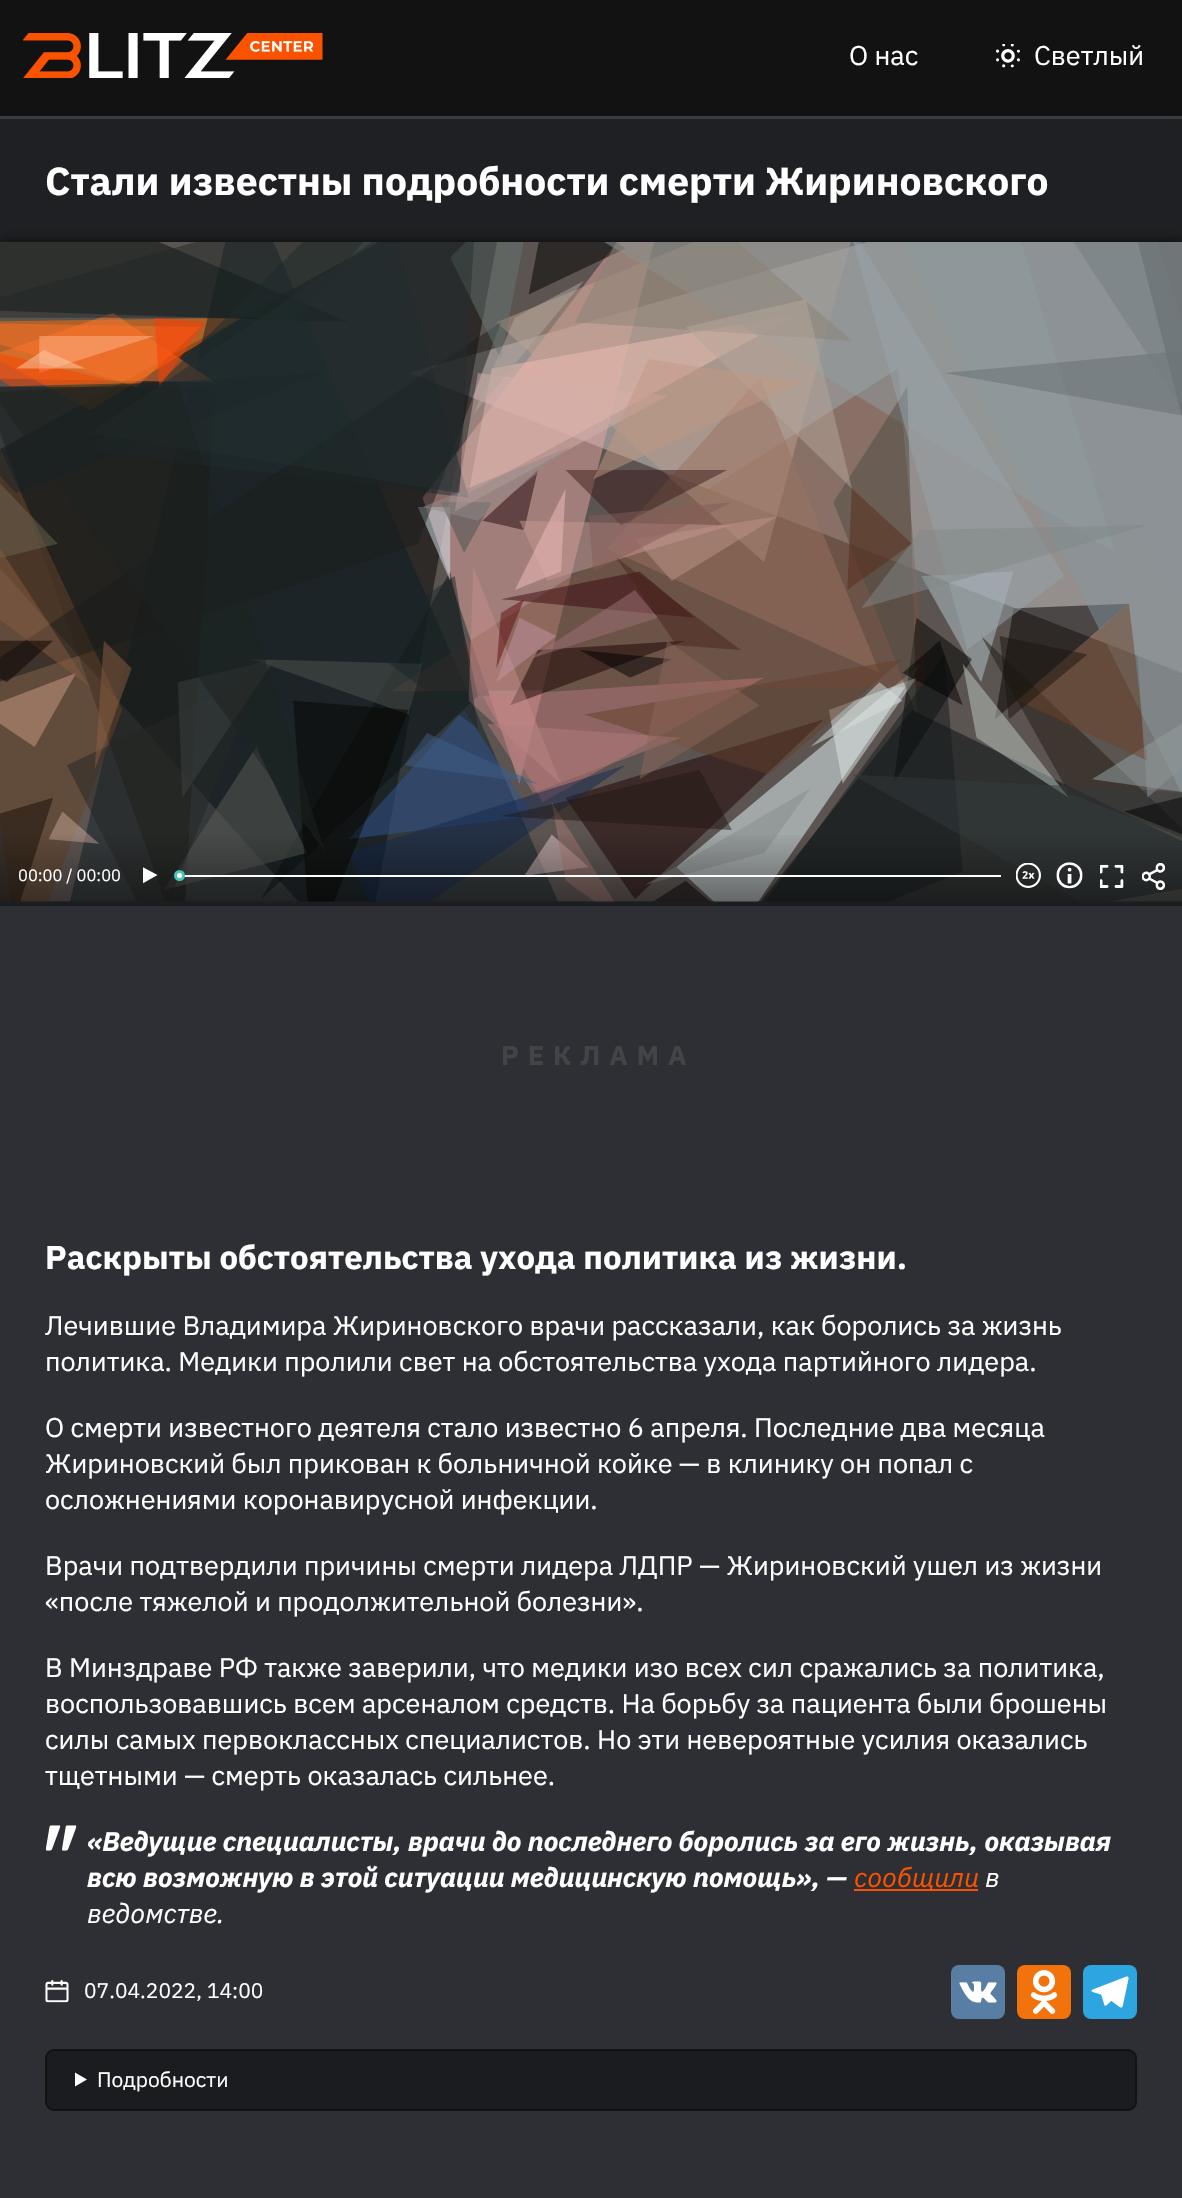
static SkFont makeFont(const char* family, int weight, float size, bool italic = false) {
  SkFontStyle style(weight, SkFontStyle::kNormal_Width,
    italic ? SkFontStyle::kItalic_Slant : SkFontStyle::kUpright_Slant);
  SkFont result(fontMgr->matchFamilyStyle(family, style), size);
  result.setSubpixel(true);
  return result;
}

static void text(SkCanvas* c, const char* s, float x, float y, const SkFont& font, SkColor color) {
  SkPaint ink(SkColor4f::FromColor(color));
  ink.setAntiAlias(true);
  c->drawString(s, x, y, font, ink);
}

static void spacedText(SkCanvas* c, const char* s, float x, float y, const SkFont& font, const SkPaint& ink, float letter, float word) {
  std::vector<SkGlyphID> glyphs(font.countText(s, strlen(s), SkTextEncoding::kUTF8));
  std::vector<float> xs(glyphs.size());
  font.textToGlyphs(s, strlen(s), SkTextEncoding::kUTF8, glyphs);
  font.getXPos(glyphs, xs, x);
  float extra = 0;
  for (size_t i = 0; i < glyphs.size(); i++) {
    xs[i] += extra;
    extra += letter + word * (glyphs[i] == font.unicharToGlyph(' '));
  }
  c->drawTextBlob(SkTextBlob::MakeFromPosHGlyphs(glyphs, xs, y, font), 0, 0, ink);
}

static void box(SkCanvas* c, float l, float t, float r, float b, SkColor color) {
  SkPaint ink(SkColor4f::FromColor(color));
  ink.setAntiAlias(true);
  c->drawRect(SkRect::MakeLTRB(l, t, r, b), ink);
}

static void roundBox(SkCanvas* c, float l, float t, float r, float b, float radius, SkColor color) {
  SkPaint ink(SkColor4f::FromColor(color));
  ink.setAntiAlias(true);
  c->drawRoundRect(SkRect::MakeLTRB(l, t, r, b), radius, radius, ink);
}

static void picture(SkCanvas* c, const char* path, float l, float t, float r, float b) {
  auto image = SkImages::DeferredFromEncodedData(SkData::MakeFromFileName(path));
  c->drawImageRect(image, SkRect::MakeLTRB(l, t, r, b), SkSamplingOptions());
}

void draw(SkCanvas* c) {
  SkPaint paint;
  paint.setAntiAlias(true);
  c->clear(0xff121212);
  picture(c, "img_01.png", 23, 33, 323, 78);
  SkFont face1 = makeFont("IBM Plex Sans", 400, 27);
  text(c, "О нас", 849, 65, face1, 0xffffffff);
  picture(c, "img_02.png", 996, 44, 1020, 68);
  text(c, "Светлый", 1034, 65, face1, 0xffffffff);
  box(c, 0, 119, 1182, 242, 0xff1f2023);
  box(c, 0, 116, 1182, 119, 0xff393b40);
  SkFont face2 = makeFont("IBM Plex Sans", 700, 39);
  text(c, "Стали известны подробности смерти Жириновского", 45, 195, face2, 0xffffffff);
  paint.setColor(0xb3000000);
  paint.setMaskFilter(SkMaskFilter::MakeBlur(kNormal_SkBlurStyle, 6));
  c->drawRect(SkRect::MakeLTRB(0, 242, 1182, 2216), paint);
  paint.setMaskFilter(nullptr);
  box(c, 0, 901, 1182, 2198, 0xff2d2f34);
  picture(c, "img_03.png", 0, 242, 1182, 902);
  {
    const SkColor colors[] = {0x00000000, 0x66000000};
    const float stops[] = {0, 1};
    const SkPoint ends[] = {{591, 831}, {591, 906}};
    paint.setShader(SkGradientShader::MakeLinear(ends, colors, stops, 2, SkTileMode::kClamp));
    paint.setAlpha(255);
  }
  c->drawRect(SkRect::MakeLTRB(0, 835, 1182, 906), paint);
  picture(c, "img_04.png", 1056, 862, 1083, 889);
  picture(c, "img_05.png", 1100, 864, 1124, 888);
  picture(c, "img_06.png", 1142, 863, 1165, 890);
  SkFont face3 = makeFont("IBM Plex Sans", 400, 16.5f);
  text(c, "00:00 / 00:00", 18, 881, face3, 0xffffffff);
  c->save();
  c->clipRect(SkRect::MakeLTRB(143, 866, 158, 885));
  paint.setShader(nullptr);
  paint.setColor(0xffffffff);
  c->drawPath(SkPathBuilder().moveTo(157.5f, 875).lineTo(142.5f, 867).lineTo(142.5f, 883.5f).close().detach(), paint);
  c->restore();
  box(c, 179, 875, 1001, 877, 0xffffffff);
  c->drawCircle(179.5f, 875.5f, 4, paint);
  paint.setStyle(SkPaint::kStroke_Style);
  paint.setStrokeWidth(3);
  paint.setColor(0xff48c5b6);
  c->drawCircle(179.5f, 875.5f, 4, paint);
  picture(c, "img_07.png", 1016, 863, 1041, 888);
  SkFont face4 = makeFont("IBM Plex Sans", 700, 27);
  paint.setStyle(SkPaint::kFill_Style);
  paint.setColor(0xff424448);
  spacedText(c, "РЕКЛАМА", 501, 1065, face4, paint, 9, 0);
  SkFont face5 = makeFont("IBM Plex Sans", 700, 33);
  text(c, "Раскрыты обстоятельства ухода политика из жизни.", 45, 1269, face5, 0xffffffff);
  text(c, "Лечившие Владимира Жириновского врачи рассказали, как боролись за жизнь", 45, 1335, face1, 0xffffffff);
  text(c, "политика. Медики пролили свет на обстоятельства ухода партийного лидера.", 45, 1371, face1, 0xffffffff);
  text(c, "О смерти известного деятеля стало известно 6 апреля. Последние два месяца", 45, 1437, face1, 0xffffffff);
  text(c, "Жириновский был прикован к больничной койке — в клинику он попал с", 45, 1473, face1, 0xffffffff);
  text(c, "осложнениями коронавирусной инфекции.", 45, 1509, face1, 0xffffffff);
  text(c, "Врачи подтвердили причины смерти лидера ЛДПР — Жириновский ушел из жизни", 45, 1575, face1, 0xffffffff);
  text(c, "«после тяжелой и продолжительной болезни».", 45, 1611, face1, 0xffffffff);
  text(c, "В Минздраве РФ также заверили, что медики изо всех сил сражались за политика,", 45, 1677, face1, 0xffffffff);
  text(c, "воспользовавшись всем арсеналом средств. На борьбу за пациента были брошены", 45, 1713, face1, 0xffffffff);
  text(c, "силы самых первоклассных специалистов. Но эти невероятные усилия оказались", 45, 1749, face1, 0xffffffff);
  text(c, "тщетными — смерть оказалась сильнее.", 45, 1785, face1, 0xffffffff);
  picture(c, "img_08.png", 45, 1825, 77, 1851);
  SkFont face6 = makeFont("IBM Plex Sans", 700, 27, true);
  text(c, "«Ведущие специалисты, врачи до последнего боролись за его жизнь, оказывая", 87, 1851, face6, 0xffffffff);
  text(c, "всю возможную в этой ситуации медицинскую помощь», —", 87, 1887, face6, 0xffffffff);
  box(c, 854, 1889, 978, 1891, 0xfffb5200);
  SkFont face7 = makeFont("IBM Plex Sans", 400, 27, true);
  text(c, "сообщили", 854, 1887, face7, 0xfffb5200);
  text(c, "в", 985, 1887, face7, 0xffffffff);
  text(c, "ведомстве.", 87, 1923, face7, 0xffffffff);
  picture(c, "img_09.png", 45, 1980, 69, 2003);
  SkFont face8 = makeFont("IBM Plex Sans", 400, 21);
  text(c, "07.04.2022, 14:00", 84, 1998, face8, 0xffffffff);
  roundBox(c, 951, 1965, 1005, 2019, 8, 0xff587ea3);
  picture(c, "img_10.png", 959, 1981, 997, 2003);
  roundBox(c, 1017, 1965, 1071, 2019, 8, 0xfff2720c);
  picture(c, "img_11.png", 1030, 1970, 1058, 2014);
  roundBox(c, 1083, 1965, 1137, 2019, 8, 0xff2ca5e0);
  picture(c, "img_12.png", 1091, 1976, 1129, 2008);
  paint.setColor(0xff1a1c20);
  c->drawRoundRect(SkRect::MakeLTRB(46, 2050, 1136, 2110), 8, 8, paint);
  paint.setStyle(SkPaint::kStroke_Style);
  paint.setStrokeWidth(2);
  paint.setColor(0xff121212);
  c->drawRoundRect(SkRect::MakeLTRB(46, 2050, 1136, 2110), 8, 8, paint);
  paint.setStyle(SkPaint::kFill_Style);
  paint.setColor(0xffffffff);
  c->drawPath(SkPathBuilder().moveTo(75, 2072.5f).lineTo(87, 2079.5f).lineTo(75, 2086.5f).close().detach(), paint);
  text(c, "Подробности", 97, 2087, face8, 0xffffffff);
}
